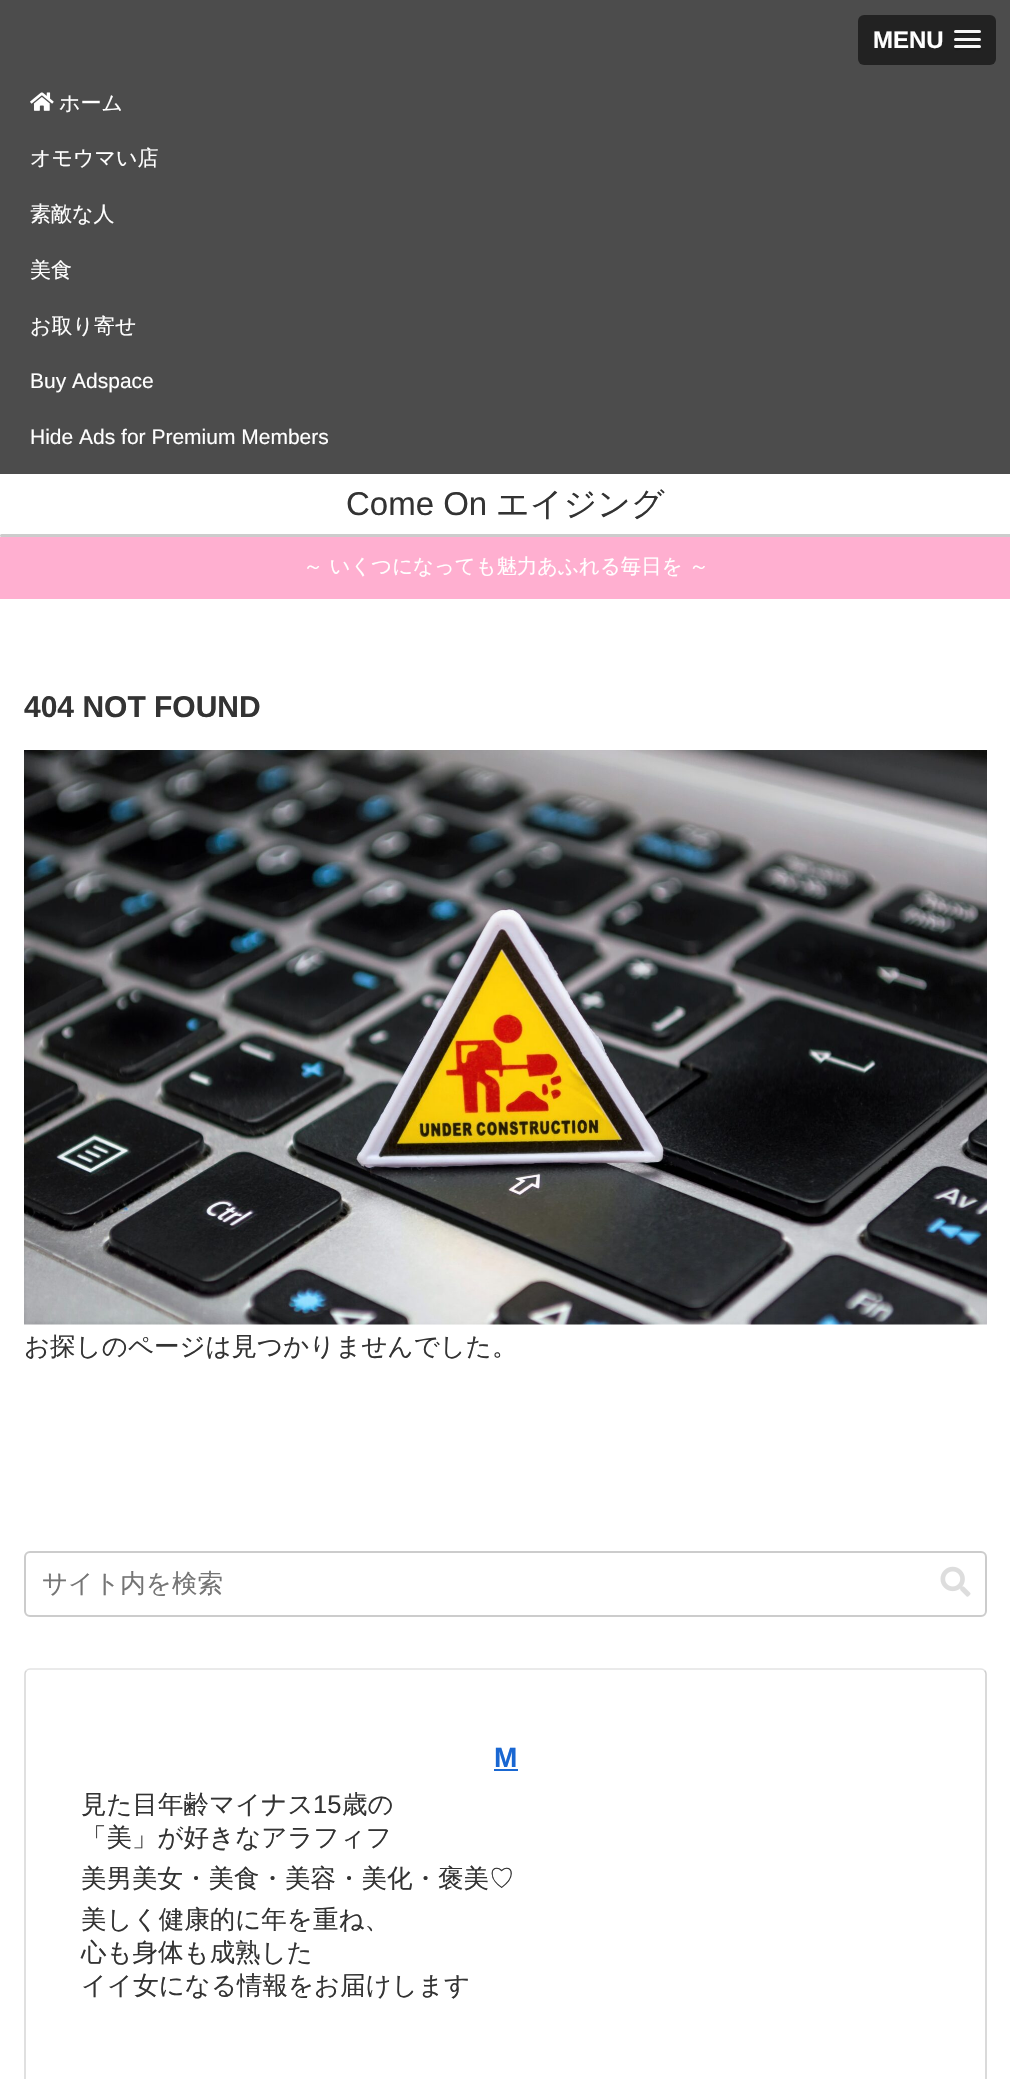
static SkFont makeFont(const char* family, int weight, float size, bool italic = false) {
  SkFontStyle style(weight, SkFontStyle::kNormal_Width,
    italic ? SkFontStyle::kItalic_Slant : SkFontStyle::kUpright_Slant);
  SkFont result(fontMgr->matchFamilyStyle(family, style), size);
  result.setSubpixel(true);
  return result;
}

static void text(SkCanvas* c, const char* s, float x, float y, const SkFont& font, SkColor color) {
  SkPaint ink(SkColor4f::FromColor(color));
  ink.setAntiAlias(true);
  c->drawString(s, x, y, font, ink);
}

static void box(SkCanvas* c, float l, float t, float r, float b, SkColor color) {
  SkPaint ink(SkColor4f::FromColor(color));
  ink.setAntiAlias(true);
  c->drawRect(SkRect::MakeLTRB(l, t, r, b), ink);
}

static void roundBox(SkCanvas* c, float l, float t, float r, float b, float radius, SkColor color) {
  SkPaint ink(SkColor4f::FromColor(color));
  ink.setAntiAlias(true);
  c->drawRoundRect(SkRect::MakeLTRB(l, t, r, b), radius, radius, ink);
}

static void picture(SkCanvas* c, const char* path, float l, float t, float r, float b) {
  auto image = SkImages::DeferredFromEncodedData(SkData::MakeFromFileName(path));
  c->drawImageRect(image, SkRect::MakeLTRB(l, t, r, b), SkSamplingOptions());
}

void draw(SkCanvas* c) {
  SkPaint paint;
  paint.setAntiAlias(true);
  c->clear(0xffffffff);
  box(c, 0, 0, 1010, 474, 0xff4c4c4c);
  roundBox(c, 858, 15, 996, 65, 6, 0xff222222);
  SkFont face1 = makeFont("Liberation Sans", 700, 24);
  text(c, "MENU", 873, 48, face1, 0xffffffff);
  paint.setColor(0xff1a1a1a);
  c->drawPath(SkPathBuilder().moveTo(954.5f, 32.5f).lineTo(954, 34).cubicTo(954.5f, 36, 959, 35, 959.5f, 35).lineTo(975.5f, 35).cubicTo(976, 35, 980.5f, 36, 981, 34).lineTo(980.5f, 32.5f).lineTo(979.5f, 33).lineTo(955.5f, 33).close().detach(), paint);
  roundBox(c, 954, 30, 981, 33, 1.5f, 0xfff5f5f5);
  c->drawPath(SkPathBuilder().moveTo(954, 39.5f).cubicTo(952.5f, 43, 959.5f, 42, 959.5f, 42).lineTo(975.5f, 42).cubicTo(975.5f, 42, 982.5f, 43, 981, 39.5f).cubicTo(980.5f, 40, 980, 40.5f, 979.5f, 40.5f).lineTo(955.5f, 40.5f).cubicTo(955, 40.5f, 954.5f, 40, 954, 39.5f).close().detach(), paint);
  roundBox(c, 954, 38, 981, 41, 1.5f, 0xfff5f5f5);
  c->drawPath(SkPathBuilder().moveTo(954.5f, 47.5f).lineTo(954, 49).cubicTo(954.5f, 51, 959, 50, 959.5f, 50).lineTo(975.5f, 50).cubicTo(976, 50, 980.5f, 51, 981, 49).lineTo(980.5f, 47.5f).lineTo(979.5f, 48).lineTo(955.5f, 48).close().detach(), paint);
  roundBox(c, 954, 45, 981, 48, 1.5f, 0xfff5f5f5);
  picture(c, "img_01.png", 30, 92, 54, 111);
  SkFont face2 = makeFont("WenQuanYi Zen Hei", 500, 21);
  text(c, "ホーム", 59, 110, face2, 0xffffffff);
  text(c, "オモウマい店", 30, 165, face2, 0xffffffff);
  text(c, "素敵な人", 30, 221, face2, 0xffffffff);
  text(c, "美食", 30, 277, face2, 0xffffffff);
  text(c, "お取り寄せ", 30, 333, face2, 0xffffffff);
  SkFont face3 = makeFont("Liberation Sans", 400, 21);
  text(c, "Buy Adspace", 30, 388, face3, 0xffffffff);
  text(c, "Hide Ads for Premium Members", 30, 444, face3, 0xffffffff);
  SkFont face4 = makeFont("Liberation Sans", 400, 33);
  text(c, "Come On", 346, 515, face4, 0xff333333);
  SkFont face5 = makeFont("WenQuanYi Zen Hei", 500, 33);
  text(c, "エイジング", 496, 515, face5, 0xff333333);
  roundBox(c, 0, 534, 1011, 537, 1.5f, 0xffcccccc);
  box(c, 0, 537, 1010, 599, 0xffffafd0);
  SkFont face6 = makeFont("WenQuanYi Zen Hei", 500, 20.4f);
  text(c, "～ いくつになっても魅力あふれる毎日を ～", 303, 573, face6, 0xffffffff);
  SkFont face7 = makeFont("Liberation Sans", 700, 30);
  text(c, "404 NOT FOUND", 24, 717, face7, 0xff333333);
  picture(c, "img_02.png", 24, 750, 987, 1325);
  SkFont face8 = makeFont("WenQuanYi Zen Hei", 500, 25.5f);
  text(c, "お探しのページは見つかりませんでした。", 24, 1355, face8, 0xff333333);
  paint.setStyle(SkPaint::kStroke_Style);
  paint.setStrokeWidth(2);
  paint.setColor(0xffcccccc);
  c->drawRoundRect(SkRect::MakeLTRB(25, 1552, 986, 1616), 5, 5, paint);
  text(c, "サイト内を検索", 42, 1592, face8, 0xff757575);
  picture(c, "img_03.png", 940, 1566, 971, 1597);
  paint.setStrokeWidth(1.5f);
  paint.setColor(0xffe3e3e3);
  c->drawPath(SkPathBuilder().moveTo(26.5f, 1670.5f).cubicTo(27.5f, 1669.5f, 28.5f, 1669, 30, 1669).lineTo(981, 1669).cubicTo(982.5f, 1669, 983.5f, 1669.5f, 984.5f, 1670.5f).detach(), paint);
  paint.setColor(0xffcecece);
  c->drawPath(SkPathBuilder().moveTo(984.5f, 1670.5f).cubicTo(985.5f, 1671.5f, 986, 1672.5f, 986, 1674).lineTo(986, 2079).cubicTo(986, 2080.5f, 985.5f, 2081.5f, 984.5f, 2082.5f).detach(), paint);
  paint.setColor(0xffd6d6d6);
  c->drawPath(SkPathBuilder().moveTo(26.5f, 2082.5f).cubicTo(25.5f, 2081.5f, 25, 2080.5f, 25, 2079).lineTo(25, 1674).cubicTo(25, 1672.5f, 25.5f, 1671.5f, 26.5f, 1670.5f).detach(), paint);
  SkFont face9 = makeFont("Liberation Sans", 700, 28);
  text(c, "M", 494, 1767, face9, 0xff1967d2);
  box(c, 494, 1769, 518, 1771, 0xff1967d2);
  text(c, "見た目年齢マイナス", 81, 1813, face8, 0xff333333);
  SkFont face10 = makeFont("Liberation Sans", 400, 25.5f);
  text(c, "15", 313, 1813, face10, 0xff333333);
  text(c, "歳の", 342, 1813, face8, 0xff333333);
  text(c, "「美」が好きなアラフィフ", 81, 1846, face8, 0xff333333);
  text(c, "美男美女・美食・美容・美化・褒美♡", 81, 1887, face8, 0xff333333);
  text(c, "美しく健康的に年を重ね、", 81, 1928, face8, 0xff333333);
  text(c, "心も身体も成熟した", 81, 1961, face8, 0xff333333);
  text(c, "イイ女になる情報をお届けします", 81, 1994, face8, 0xff333333);
}
